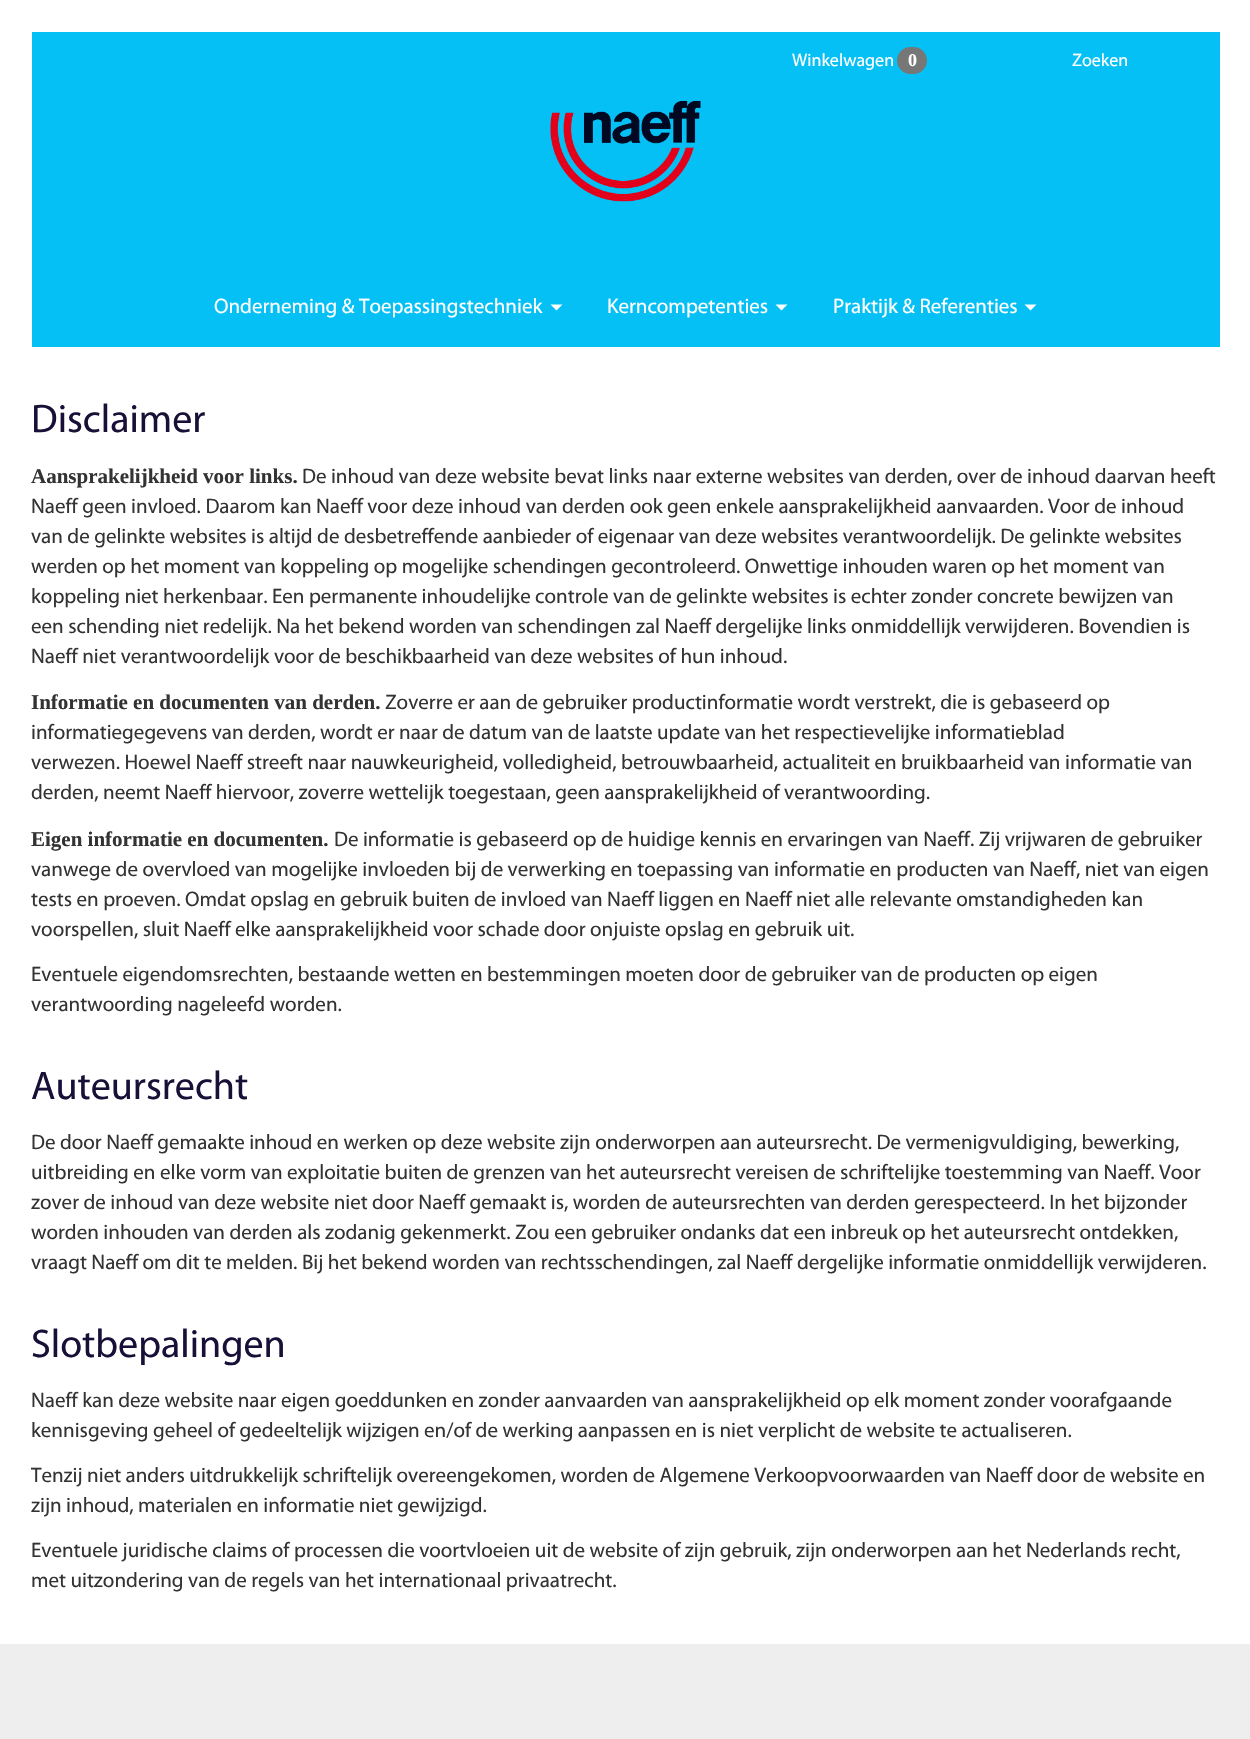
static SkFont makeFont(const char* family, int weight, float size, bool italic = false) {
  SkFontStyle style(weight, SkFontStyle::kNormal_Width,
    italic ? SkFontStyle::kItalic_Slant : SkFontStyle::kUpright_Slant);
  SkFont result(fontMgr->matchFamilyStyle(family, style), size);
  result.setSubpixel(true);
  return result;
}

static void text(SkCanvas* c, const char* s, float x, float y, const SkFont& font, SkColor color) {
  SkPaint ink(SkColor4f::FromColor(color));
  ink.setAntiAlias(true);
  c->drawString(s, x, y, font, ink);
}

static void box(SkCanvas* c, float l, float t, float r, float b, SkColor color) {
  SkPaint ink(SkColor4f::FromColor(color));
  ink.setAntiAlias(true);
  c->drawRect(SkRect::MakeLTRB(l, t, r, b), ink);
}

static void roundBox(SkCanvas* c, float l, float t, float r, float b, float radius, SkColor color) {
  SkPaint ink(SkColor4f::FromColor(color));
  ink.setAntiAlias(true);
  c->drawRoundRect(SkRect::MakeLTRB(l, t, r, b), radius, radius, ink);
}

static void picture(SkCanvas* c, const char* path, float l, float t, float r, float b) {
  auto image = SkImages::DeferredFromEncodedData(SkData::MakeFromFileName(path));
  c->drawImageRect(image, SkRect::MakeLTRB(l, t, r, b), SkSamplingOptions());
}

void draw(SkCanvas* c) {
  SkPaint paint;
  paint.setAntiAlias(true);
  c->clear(0xffffffff);
  box(c, 32, 32, 1220, 347, 0xff04c0f4);
  SkFont face1 = makeFont("Myriad", 400, 18);
  text(c, "Winkelwagen", 792, 66, face1, 0xffffffff);
  roundBox(c, 897, 47, 927, 74, 13.5f, 0xff777777);
  SkFont face2 = makeFont("Liberation Serif", 700, 18);
  text(c, "0", 908, 66, face2, 0xffffffff);
  text(c, "Zoeken", 1072, 66, face1, 0xffffffff);
  SkFont face3 = makeFont("Myriad", 400, 21);
  text(c, "Onderneming & Toepassingstechniek", 214, 313, face3, 0xffffffff);
  paint.setColor(0xffffffff);
  c->drawPath(SkPathBuilder().moveTo(550.5f, 304.5f).lineTo(562.5f, 304.5f).lineTo(556.5f, 310.5f).close().detach(), paint);
  text(c, "Kerncompetenties", 607, 313, face3, 0xffffffff);
  c->drawPath(SkPathBuilder().moveTo(775.5f, 304.5f).lineTo(787.5f, 304.5f).lineTo(781.5f, 310.5f).close().detach(), paint);
  text(c, "Praktijk & Referenties", 833, 313, face3, 0xffffffff);
  c->drawPath(SkPathBuilder().moveTo(1024.5f, 304.5f).lineTo(1036.5f, 304.5f).lineTo(1030.5f, 310.5f).close().detach(), paint);
  picture(c, "img_01.png", 550, 101, 701, 202);
  SkFont face4 = makeFont("Myriad", 400, 40);
  text(c, "Disclaimer", 31, 432, face4, 0xff191038);
  SkFont face5 = makeFont("Liberation Serif", 700, 21);
  text(c, "Aansprakelijkheid voor links.", 31, 483, face5, 0xff333333);
  text(c, "De inhoud van deze website bevat links naar externe websites van derden, over de inhoud daarvan heeft", 302, 483, face3, 0xff333333);
  text(c, "Naeff geen invloed. Daarom kan Naeff voor deze inhoud van derden ook geen enkele aansprakelijkheid aanvaarden. Voor de inhoud", 31, 513, face3, 0xff333333);
  text(c, "van de gelinkte websites is altijd de desbetreffende aanbieder of eigenaar van deze websites verantwoordelijk. De gelinkte websites", 31, 543, face3, 0xff333333);
  text(c, "werden op het moment van koppeling op mogelijke schendingen gecontroleerd. Onwettige inhouden waren op het moment van", 31, 573, face3, 0xff333333);
  text(c, "koppeling niet herkenbaar. Een permanente inhoudelijke controle van de gelinkte websites is echter zonder concrete bewijzen van", 31, 603, face3, 0xff333333);
  text(c, "een schending niet redelijk. Na het bekend worden van schendingen zal Naeff dergelijke links onmiddellijk verwijderen. Bovendien is", 31, 633, face3, 0xff333333);
  text(c, "Naeff niet verantwoordelijk voor de beschikbaarheid van deze websites of hun inhoud.", 31, 663, face3, 0xff333333);
  text(c, "Informatie en documenten van derden.", 31, 709, face5, 0xff333333);
  text(c, "Zoverre er aan de gebruiker productinformatie wordt verstrekt, die is gebaseerd op", 385, 709, face3, 0xff333333);
  text(c, "informatiegegevens van derden, wordt er naar de datum van de laatste update van het respectievelijke informatieblad", 31, 739, face3, 0xff333333);
  text(c, "verwezen. Hoewel Naeff streeft naar nauwkeurigheid, volledigheid, betrouwbaarheid, actualiteit en bruikbaarheid van informatie van", 31, 769, face3, 0xff333333);
  text(c, "derden, neemt Naeff hiervoor, zoverre wettelijk toegestaan, geen aansprakelijkheid of verantwoording.", 31, 799, face3, 0xff333333);
  text(c, "Eigen informatie en documenten.", 31, 846, face5, 0xff333333);
  text(c, "De informatie is gebaseerd op de huidige kennis en ervaringen van Naeff. Zij vrijwaren de gebruiker", 334, 846, face3, 0xff333333);
  text(c, "vanwege de overvloed van mogelijke invloeden bij de verwerking en toepassing van informatie en producten van Naeff, niet van eigen", 31, 876, face3, 0xff333333);
  text(c, "tests en proeven. Omdat opslag en gebruik buiten de invloed van Naeff liggen en Naeff niet alle relevante omstandigheden kan", 31, 906, face3, 0xff333333);
  text(c, "voorspellen, sluit Naeff elke aansprakelijkheid voor schade door onjuiste opslag en gebruik uit.", 31, 936, face3, 0xff333333);
  text(c, "Eventuele eigendomsrechten, bestaande wetten en bestemmingen moeten door de gebruiker van de producten op eigen", 31, 981, face3, 0xff333333);
  text(c, "verantwoording nageleefd worden.", 31, 1011, face3, 0xff333333);
  text(c, "Auteursrecht", 31, 1099, face4, 0xff191038);
  text(c, "De door Naeff gemaakte inhoud en werken op deze website zijn onderworpen aan auteursrecht. De vermenigvuldiging, bewerking,", 31, 1149, face3, 0xff333333);
  text(c, "uitbreiding en elke vorm van exploitatie buiten de grenzen van het auteursrecht vereisen de schriftelijke toestemming van Naeff. Voor", 31, 1179, face3, 0xff333333);
  text(c, "zover de inhoud van deze website niet door Naeff gemaakt is, worden de auteursrechten van derden gerespecteerd. In het bijzonder", 31, 1209, face3, 0xff333333);
  text(c, "worden inhouden van derden als zodanig gekenmerkt. Zou een gebruiker ondanks dat een inbreuk op het auteursrecht ontdekken,", 31, 1239, face3, 0xff333333);
  text(c, "vraagt Naeff om dit te melden. Bij het bekend worden van rechtsschendingen, zal Naeff dergelijke informatie onmiddellijk verwijderen.", 31, 1269, face3, 0xff333333);
  text(c, "Slotbepalingen", 31, 1357, face4, 0xff191038);
  text(c, "Naeff kan deze website naar eigen goeddunken en zonder aanvaarden van aansprakelijkheid op elk moment zonder voorafgaande", 31, 1407, face3, 0xff333333);
  text(c, "kennisgeving geheel of gedeeltelijk wijzigen en/of de werking aanpassen en is niet verplicht de website te actualiseren.", 31, 1437, face3, 0xff333333);
  text(c, "Tenzij niet anders uitdrukkelijk schriftelijk overeengekomen, worden de Algemene Verkoopvoorwaarden van Naeff door de website en", 31, 1482, face3, 0xff333333);
  text(c, "zijn inhoud, materialen en informatie niet gewijzigd.", 31, 1512, face3, 0xff333333);
  text(c, "Eventuele juridische claims of processen die voortvloeien uit de website of zijn gebruik, zijn onderworpen aan het Nederlands recht,", 31, 1557, face3, 0xff333333);
  text(c, "met uitzondering van de regels van het internationaal privaatrecht.", 31, 1587, face3, 0xff333333);
  box(c, 0, 1644, 1250, 1739, 0xffeeeeee);
}
